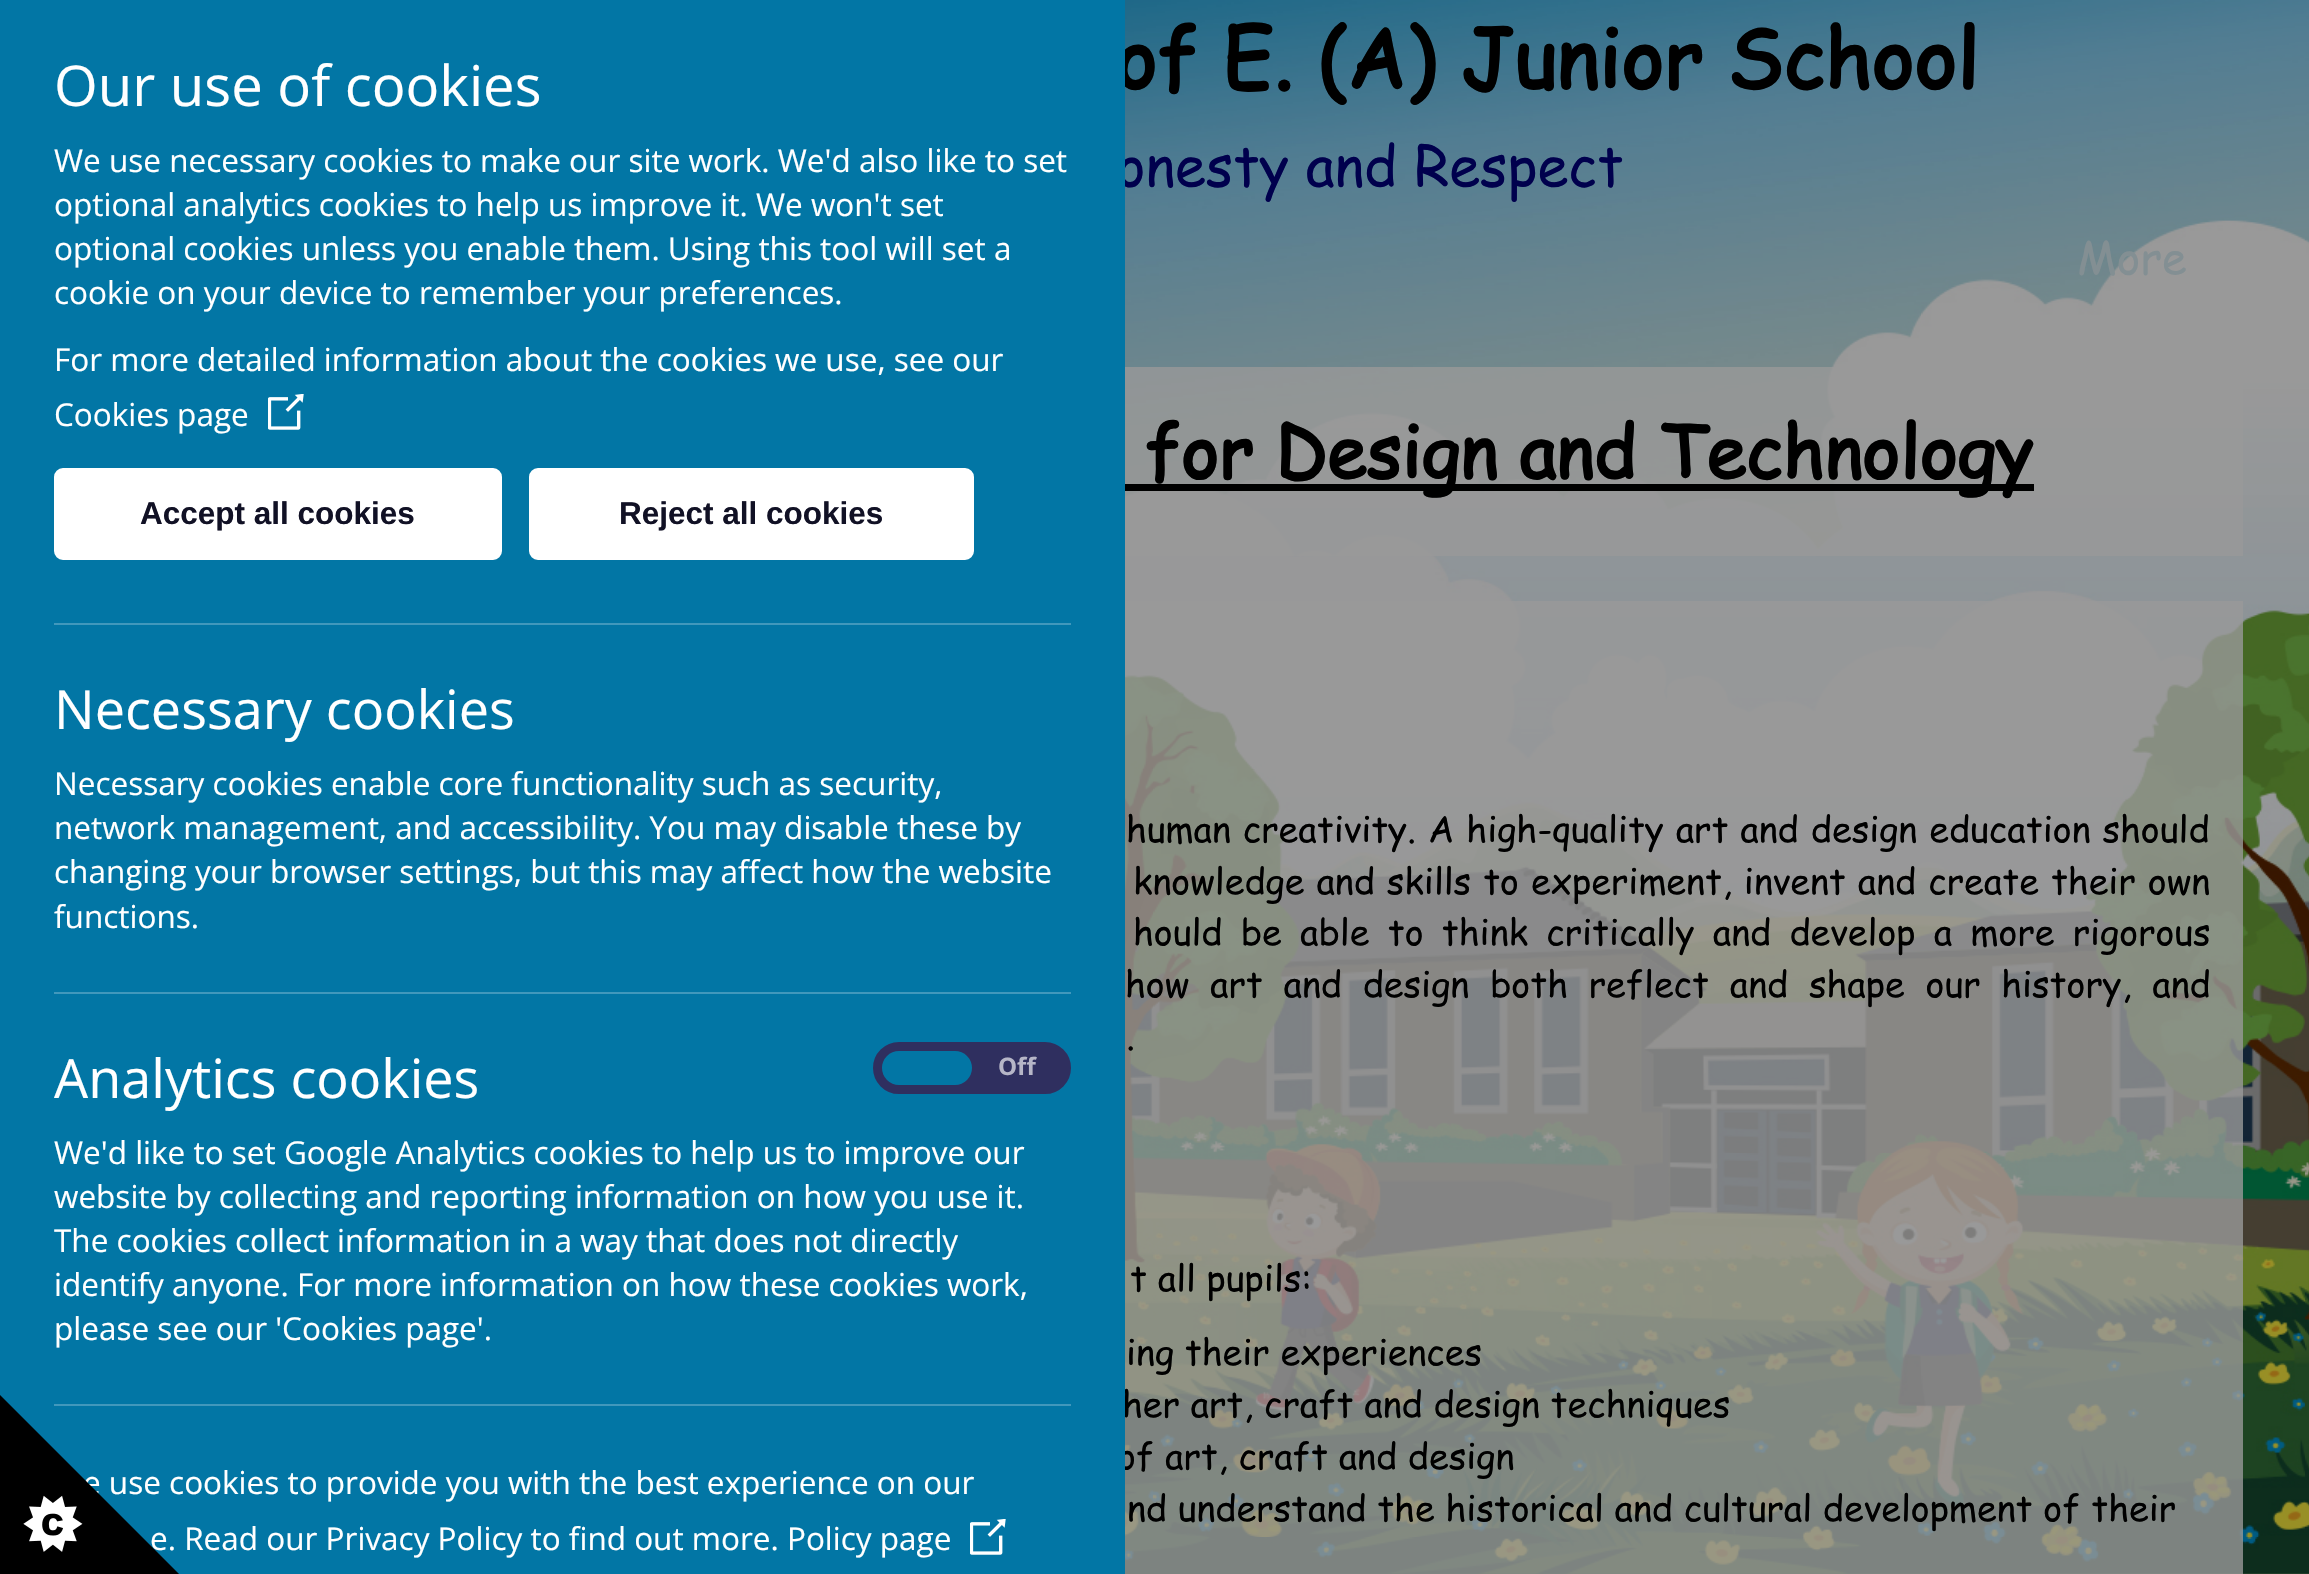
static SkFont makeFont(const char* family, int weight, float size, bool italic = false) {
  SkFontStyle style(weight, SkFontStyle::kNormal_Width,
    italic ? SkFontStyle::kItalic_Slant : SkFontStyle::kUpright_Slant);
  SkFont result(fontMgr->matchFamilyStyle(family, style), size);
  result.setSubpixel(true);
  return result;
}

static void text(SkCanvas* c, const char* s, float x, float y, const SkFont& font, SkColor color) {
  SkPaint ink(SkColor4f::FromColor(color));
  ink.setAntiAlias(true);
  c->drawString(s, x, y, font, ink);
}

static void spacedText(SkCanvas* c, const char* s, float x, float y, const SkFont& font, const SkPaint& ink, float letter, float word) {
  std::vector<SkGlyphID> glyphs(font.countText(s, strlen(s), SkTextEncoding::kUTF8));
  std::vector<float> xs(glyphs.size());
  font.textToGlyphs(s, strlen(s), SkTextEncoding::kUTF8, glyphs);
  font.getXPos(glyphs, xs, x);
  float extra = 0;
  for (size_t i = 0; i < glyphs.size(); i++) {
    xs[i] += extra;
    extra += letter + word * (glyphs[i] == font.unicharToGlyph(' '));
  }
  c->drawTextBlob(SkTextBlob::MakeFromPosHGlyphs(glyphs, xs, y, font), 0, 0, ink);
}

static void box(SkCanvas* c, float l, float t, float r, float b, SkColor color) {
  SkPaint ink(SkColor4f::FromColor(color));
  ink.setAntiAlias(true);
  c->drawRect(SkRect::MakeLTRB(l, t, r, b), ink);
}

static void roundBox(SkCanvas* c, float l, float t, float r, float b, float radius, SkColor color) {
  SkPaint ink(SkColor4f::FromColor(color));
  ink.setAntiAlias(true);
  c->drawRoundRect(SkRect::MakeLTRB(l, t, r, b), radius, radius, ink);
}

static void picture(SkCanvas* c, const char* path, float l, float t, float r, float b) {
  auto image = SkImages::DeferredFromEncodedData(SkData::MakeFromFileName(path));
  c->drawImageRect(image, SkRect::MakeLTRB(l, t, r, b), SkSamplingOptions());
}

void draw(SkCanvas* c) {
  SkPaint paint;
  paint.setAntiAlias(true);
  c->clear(0xffffffff);
  picture(c, "img_03.png", 1125, 0, 2309, 1574);
  SkFont face1 = makeFont("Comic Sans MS", 700, 81);
  text(c, "of E. (A) Junior School", 1114, 88, face1, 0xff000000);
  SkFont face2 = makeFont("Comic Sans MS", 400, 56.25f);
  text(c, "onesty and Respect", 1116, 186, face2, 0xff00004d);
  box(c, 1125, 601, 2243, 1574, 0xcc999999);
  SkFont face3 = makeFont("Comic Sans MS", 400, 36);
  text(c, "her art, craft and design techniques", 1122, 1417, face3, 0xff000000);
  text(c, "of art, craft and design", 1117, 1469, face3, 0xff000000);
  box(c, 0, 0, 1125, 1574, 0xff0276a5);
  SkFont face4 = makeFont("Open Sans", 400, 56.25f);
  text(c, "Our use of cookies", 54, 106, face4, 0xffffffff);
  SkFont face5 = makeFont("Open Sans", 400, 31.5f);
  text(c, "We use necessary cookies to make our site work. We'd also like to set", 54, 172, face5, 0xffffffff);
  text(c, "optional analytics cookies to help us improve it. We won't set", 54, 216, face5, 0xffffffff);
  text(c, "optional cookies unless you enable them. Using this tool will set a", 54, 260, face5, 0xffffffff);
  text(c, "cookie on your device to remember your preferences.", 54, 304, face5, 0xffffffff);
  text(c, "For more detailed information about the cookies we use, see our", 54, 371, face5, 0xffffffff);
  text(c, "Cookies page", 54, 426, face5, 0xffffffff);
  picture(c, "img_01.png", 268, 394, 304, 430);
  paint.setColor(0xffffffff);
  c->drawRoundRect(SkRect::MakeLTRB(56.5f, 470.5f, 499.5f, 557.5f), 6.5f, 6.5f, paint);
  paint.setStyle(SkPaint::kStroke_Style);
  paint.setStrokeWidth(5);
  c->drawRoundRect(SkRect::MakeLTRB(56.5f, 470.5f, 499.5f, 557.5f), 6.5f, 6.5f, paint);
  SkFont face6 = makeFont("Liberation Sans", 700, 31.5f);
  text(c, "Accept all cookies", 140, 524, face6, 0xff111125);
  paint.setStyle(SkPaint::kFill_Style);
  c->drawRoundRect(SkRect::MakeLTRB(531.5f, 470.5f, 971.5f, 557.5f), 6.5f, 6.5f, paint);
  paint.setStyle(SkPaint::kStroke_Style);
  c->drawRoundRect(SkRect::MakeLTRB(531.5f, 470.5f, 971.5f, 557.5f), 6.5f, 6.5f, paint);
  text(c, "Reject all cookies", 619, 524, face6, 0xff111125);
  box(c, 54, 623, 1071, 625, 0xff4198bc);
  SkFont face7 = makeFont("Open Sans", 400, 54);
  text(c, "Necessary cookies", 54, 729, face7, 0xffffffff);
  text(c, "Necessary cookies enable core functionality such as security,", 54, 795, face5, 0xffffffff);
  text(c, "network management, and accessibility. You may disable these by", 54, 839, face5, 0xffffffff);
  text(c, "changing your browser settings, but this may affect how the website", 54, 883, face5, 0xffffffff);
  text(c, "functions.", 54, 928, face5, 0xffffffff);
  box(c, 54, 992, 1071, 994, 0xff4198bc);
  text(c, "Analytics cookies", 54, 1098, face7, 0xffffffff);
  paint.setStyle(SkPaint::kFill_Style);
  paint.setColor(0xff2f2f5f);
  c->drawRoundRect(SkRect::MakeLTRB(877.5f, 1046.5f, 1066.5f, 1089.5f), 21.5f, 21.5f, paint);
  paint.setStyle(SkPaint::kStroke_Style);
  paint.setStrokeWidth(9);
  c->drawRoundRect(SkRect::MakeLTRB(877.5f, 1046.5f, 1066.5f, 1089.5f), 21.5f, 21.5f, paint);
  roundBox(c, 882, 1051, 972, 1085, 17, 0xff0276a5);
  SkFont face8 = makeFont("Open Sans", 700, 24);
  text(c, "Off", 998, 1075, face8, 0xffb6b6c7);
  text(c, "We'd like to set Google Analytics cookies to help us to improve our", 54, 1164, face5, 0xffffffff);
  text(c, "website by collecting and reporting information on how you use it.", 54, 1208, face5, 0xffffffff);
  text(c, "The cookies collect information in a way that does not directly", 54, 1252, face5, 0xffffffff);
  text(c, "identify anyone. For more information on how these cookies work,", 54, 1296, face5, 0xffffffff);
  text(c, "please see our 'Cookies page'.", 54, 1340, face5, 0xffffffff);
  box(c, 54, 1404, 1071, 1406, 0xff4198bc);
  text(c, "e use cookies to provide you with the best experience on our", 83, 1494, face5, 0xffffffff);
  text(c, "e. Read our Privacy Policy to find out more. Policy page", 150, 1550, face5, 0xffffffff);
  picture(c, "img_01.png", 970, 1519, 1006, 1555);
  picture(c, "img_02.png", 0, 1395, 179, 1574);
  SkFont face9 = makeFont("Comic Sans MS", 400, 45);
  text(c, "More", 2077, 274, face9, 0xff838f93);
  box(c, 1125, 367, 2243, 556, 0xcc999999);
  box(c, 1125, 484, 2034, 491, 0xff000000);
  SkFont face10 = makeFont("Comic Sans MS", 700, 72);
  text(c, "for Design and Technology", 1144, 478, face10, 0xff000000);
  paint.setStyle(SkPaint::kFill_Style);
  paint.setColor(0xff000000);
  spacedText(c, "human creativity. A high-quality art and design education should", 1126, 842, face3, paint, 0, 1.25f);
  spacedText(c, "knowledge and skills to experiment, invent and create their own", 1133, 894, face3, paint, 0, 1.25f);
  spacedText(c, "hould be able to think critically and develop a more rigorous", 1133, 945, face3, paint, 0, 7.5f);
  spacedText(c, "how art and design both reflect and shape our history, and", 1125, 997, face3, paint, 0, 10);
  text(c, ".", 1126, 1049, face3, 0xff000000);
  text(c, "t all pupils:", 1130, 1291, face3, 0xff000000);
  text(c, "ing their experiences", 1126, 1365, face3, 0xff000000);
  text(c, "nd understand the historical and cultural development of their", 1127, 1521, face3, 0xff000000);
}
